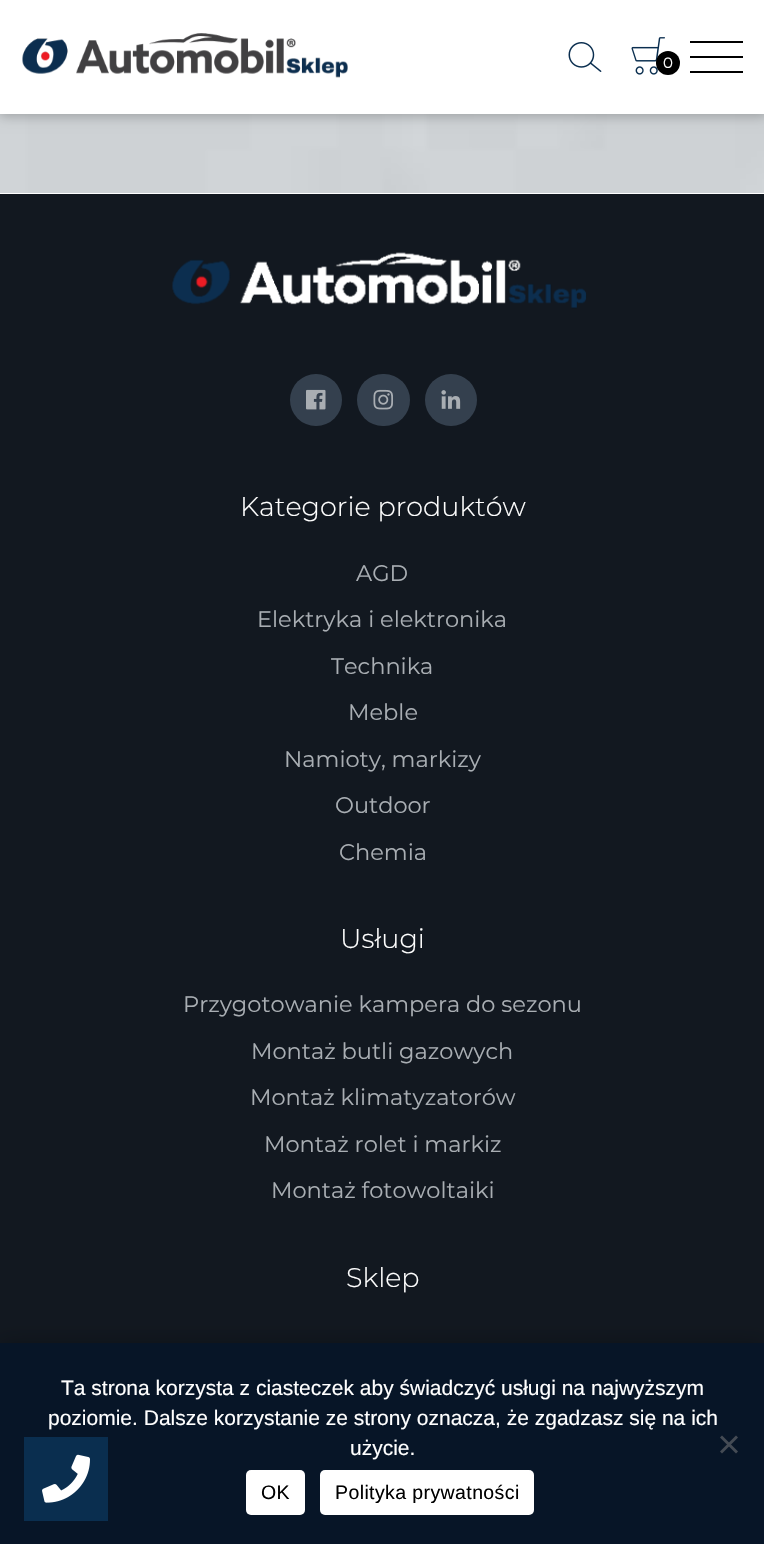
static SkFont makeFont(const char* family, int weight, float size, bool italic = false) {
  SkFontStyle style(weight, SkFontStyle::kNormal_Width,
    italic ? SkFontStyle::kItalic_Slant : SkFontStyle::kUpright_Slant);
  SkFont result(fontMgr->matchFamilyStyle(family, style), size);
  result.setSubpixel(true);
  return result;
}

static void text(SkCanvas* c, const char* s, float x, float y, const SkFont& font, SkColor color) {
  SkPaint ink(SkColor4f::FromColor(color));
  ink.setAntiAlias(true);
  c->drawString(s, x, y, font, ink);
}

static void spacedText(SkCanvas* c, const char* s, float x, float y, const SkFont& font, const SkPaint& ink, float letter, float word) {
  std::vector<SkGlyphID> glyphs(font.countText(s, strlen(s), SkTextEncoding::kUTF8));
  std::vector<float> xs(glyphs.size());
  font.textToGlyphs(s, strlen(s), SkTextEncoding::kUTF8, glyphs);
  font.getXPos(glyphs, xs, x);
  float extra = 0;
  for (size_t i = 0; i < glyphs.size(); i++) {
    xs[i] += extra;
    extra += letter + word * (glyphs[i] == font.unicharToGlyph(' '));
  }
  c->drawTextBlob(SkTextBlob::MakeFromPosHGlyphs(glyphs, xs, y, font), 0, 0, ink);
}

static void box(SkCanvas* c, float l, float t, float r, float b, SkColor color) {
  SkPaint ink(SkColor4f::FromColor(color));
  ink.setAntiAlias(true);
  c->drawRect(SkRect::MakeLTRB(l, t, r, b), ink);
}

static void roundBox(SkCanvas* c, float l, float t, float r, float b, float radius, SkColor color) {
  SkPaint ink(SkColor4f::FromColor(color));
  ink.setAntiAlias(true);
  c->drawRoundRect(SkRect::MakeLTRB(l, t, r, b), radius, radius, ink);
}

static void picture(SkCanvas* c, const char* path, float l, float t, float r, float b) {
  auto image = SkImages::DeferredFromEncodedData(SkData::MakeFromFileName(path));
  c->drawImageRect(image, SkRect::MakeLTRB(l, t, r, b), SkSamplingOptions());
}

void draw(SkCanvas* c) {
  SkPaint paint;
  paint.setAntiAlias(true);
  c->clear(0xffffffff);
  picture(c, "img_04.png", 0, 114, 764, 193);
  paint.setColor(0x40000000);
  paint.setMaskFilter(SkMaskFilter::MakeBlur(kNormal_SkBlurStyle, 6));
  c->drawRect(SkRect::MakeLTRB(-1, -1, 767, 116), paint);
  paint.setMaskFilter(nullptr);
  box(c, 0, 0, 764, 114, 0xffffffff);
  picture(c, "img_01.png", 22, 33, 348, 78);
  picture(c, "img_02.png", 568, 42, 602, 72);
  picture(c, "img_03.png", 631, 37, 665, 75);
  paint.setColor(0xff000000);
  c->drawCircle(668, 63, 12, paint);
  SkFont face1 = makeFont("Montserrat", 400, 15);
  text(c, "0", 663, 68, face1, 0xffffffff);
  box(c, 690, 41, 743, 43, 0xff000000);
  box(c, 690, 56, 743, 58, 0xff000000);
  box(c, 690, 71, 743, 73, 0xff000000);
  box(c, 0, 194, 764, 1343, 0xff121820);
  picture(c, "img_05.png", 172, 252, 587, 309);
  paint.setColor(0xff34404e);
  c->drawCircle(316, 400, 26, paint);
  picture(c, "img_06.png", 306, 389, 326, 410);
  roundBox(c, 357, 374, 410, 426, 26, 0xff34404e);
  picture(c, "img_07.png", 373, 389, 393, 410);
  c->drawCircle(451, 400, 26, paint);
  picture(c, "img_08.png", 441, 390, 461, 409);
  SkFont face2 = makeFont("Montserrat", 300, 27);
  text(c, "Kategorie produktów", 240, 516, face2, 0xffffffff);
  SkFont face3 = makeFont("Montserrat", 400, 22.5f);
  text(c, "AGD", 356, 581, face3, 0xffa9aeb3);
  text(c, "Elektryka i elektronika", 257, 627, face3, 0xffa9aeb3);
  text(c, "Technika", 331, 674, face3, 0xffa9aeb3);
  text(c, "Meble", 348, 720, face3, 0xffa9aeb3);
  text(c, "Namioty, markizy", 284, 767, face3, 0xffa9aeb3);
  text(c, "Outdoor", 335, 813, face3, 0xffa9aeb3);
  text(c, "Chemia", 339, 860, face3, 0xffa9aeb3);
  text(c, "Usługi", 340, 948, face2, 0xffffffff);
  text(c, "Przygotowanie kampera do sezonu", 183, 1012, face3, 0xffa9aeb3);
  text(c, "Montaż butli gazowych", 251, 1059, face3, 0xffa9aeb3);
  text(c, "Montaż klimatyzatorów", 250, 1105, face3, 0xffa9aeb3);
  text(c, "Montaż rolet i markiz", 264, 1152, face3, 0xffa9aeb3);
  text(c, "Montaż fotowoltaiki", 271, 1198, face3, 0xffa9aeb3);
  text(c, "Sklep", 346, 1287, face2, 0xffffffff);
  paint.setColor(0x40000000);
  paint.setMaskFilter(SkMaskFilter::MakeBlur(kNormal_SkBlurStyle, 10));
  c->drawRect(SkRect::MakeLTRB(0, 1343, 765, 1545), paint);
  paint.setMaskFilter(nullptr);
  box(c, 0, 1343, 764, 1544, 0xff071527);
  SkFont face4 = makeFont("Liberation Sans", 400, 21);
  text(c, "Ta strona korzysta z ciasteczek aby świadczyć usługi na najwyższym", 61, 1395, face4, 0xffffffff);
  text(c, "poziomie. Dalsze korzystanie ze strony oznacza, że zgadzasz się na ich", 48, 1425, face4, 0xffffffff);
  text(c, "użycie.", 350, 1455, face4, 0xffffffff);
  paint.setColor(0xff444b54);
  c->drawPath(SkPathBuilder().moveTo(736, 1435.5f).lineTo(738, 1437.5f).lineTo(722, 1453.5f).lineTo(720, 1451.5f).close().detach(), paint);
  c->drawPath(SkPathBuilder().moveTo(720, 1437.5f).lineTo(722, 1435.5f).lineTo(738, 1451.5f).lineTo(736, 1453.5f).close().detach(), paint);
  roundBox(c, 246, 1470, 305, 1515, 5, 0xffffffff);
  SkFont face5 = makeFont("Liberation Sans", 400, 19.5f);
  paint.setColor(0xff000000);
  spacedText(c, "OK", 261, 1499, face5, paint, 0.4f, 0);
  roundBox(c, 320, 1470, 534, 1515, 5, 0xffffffff);
  spacedText(c, "Polityka prywatności", 335, 1499, face5, paint, 0.4f, 0);
  box(c, 24, 1437, 108, 1521, 0xff0a2e4f);
  picture(c, "img_09.png", 42, 1454, 90, 1503);
}
